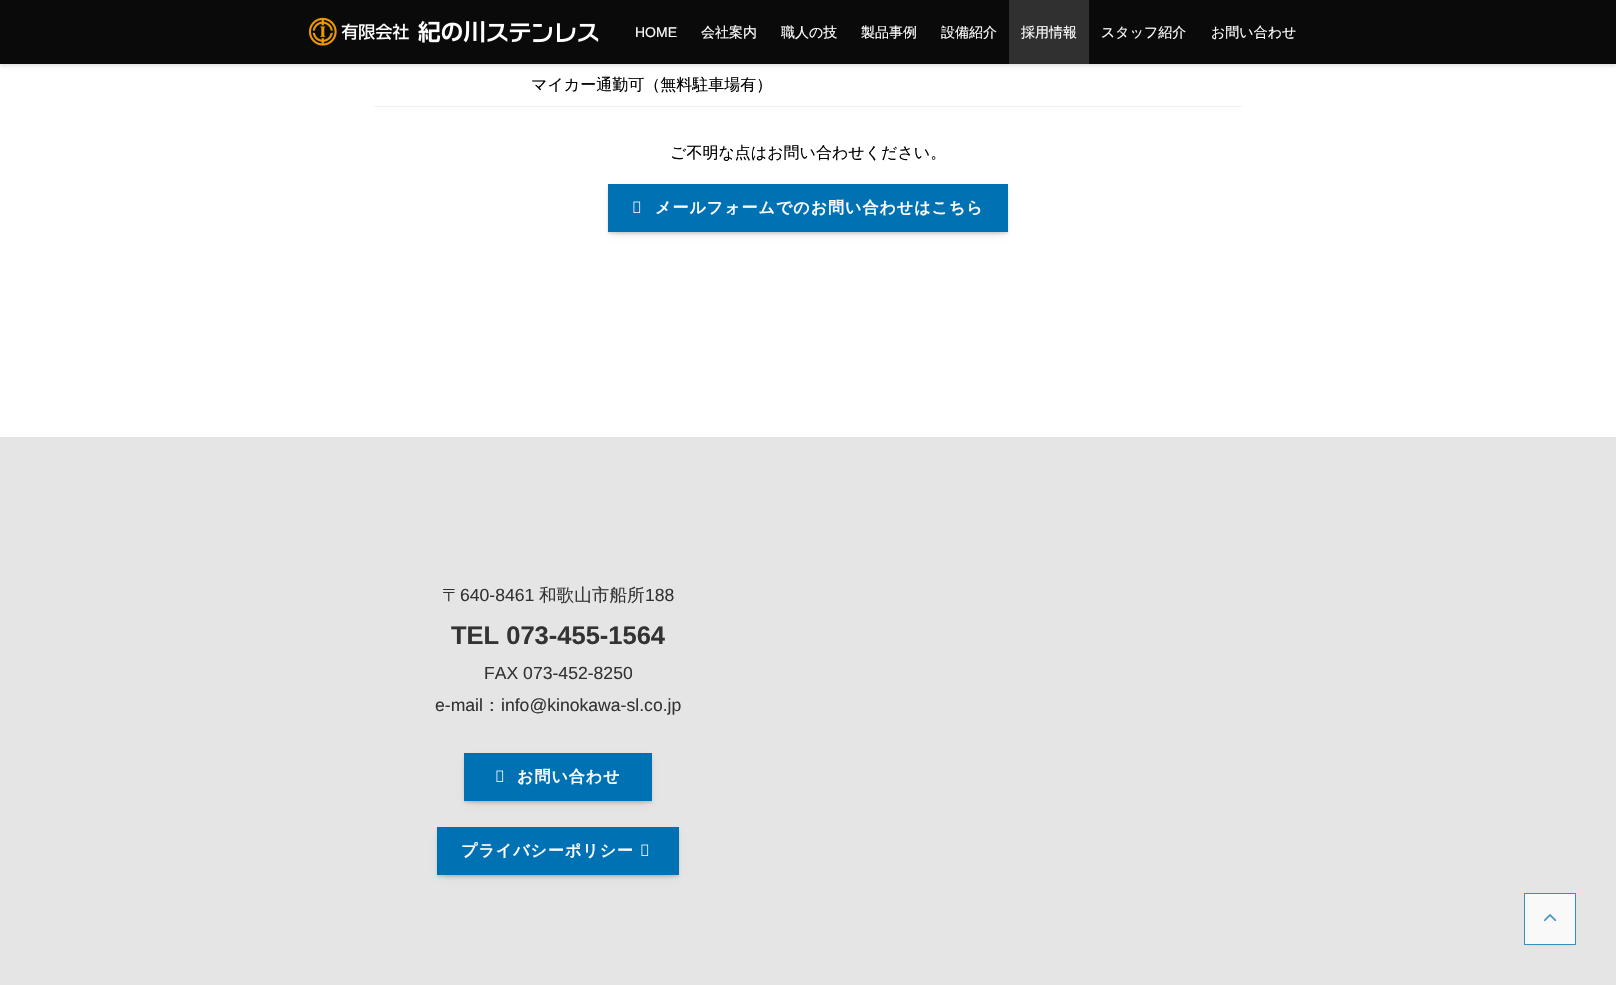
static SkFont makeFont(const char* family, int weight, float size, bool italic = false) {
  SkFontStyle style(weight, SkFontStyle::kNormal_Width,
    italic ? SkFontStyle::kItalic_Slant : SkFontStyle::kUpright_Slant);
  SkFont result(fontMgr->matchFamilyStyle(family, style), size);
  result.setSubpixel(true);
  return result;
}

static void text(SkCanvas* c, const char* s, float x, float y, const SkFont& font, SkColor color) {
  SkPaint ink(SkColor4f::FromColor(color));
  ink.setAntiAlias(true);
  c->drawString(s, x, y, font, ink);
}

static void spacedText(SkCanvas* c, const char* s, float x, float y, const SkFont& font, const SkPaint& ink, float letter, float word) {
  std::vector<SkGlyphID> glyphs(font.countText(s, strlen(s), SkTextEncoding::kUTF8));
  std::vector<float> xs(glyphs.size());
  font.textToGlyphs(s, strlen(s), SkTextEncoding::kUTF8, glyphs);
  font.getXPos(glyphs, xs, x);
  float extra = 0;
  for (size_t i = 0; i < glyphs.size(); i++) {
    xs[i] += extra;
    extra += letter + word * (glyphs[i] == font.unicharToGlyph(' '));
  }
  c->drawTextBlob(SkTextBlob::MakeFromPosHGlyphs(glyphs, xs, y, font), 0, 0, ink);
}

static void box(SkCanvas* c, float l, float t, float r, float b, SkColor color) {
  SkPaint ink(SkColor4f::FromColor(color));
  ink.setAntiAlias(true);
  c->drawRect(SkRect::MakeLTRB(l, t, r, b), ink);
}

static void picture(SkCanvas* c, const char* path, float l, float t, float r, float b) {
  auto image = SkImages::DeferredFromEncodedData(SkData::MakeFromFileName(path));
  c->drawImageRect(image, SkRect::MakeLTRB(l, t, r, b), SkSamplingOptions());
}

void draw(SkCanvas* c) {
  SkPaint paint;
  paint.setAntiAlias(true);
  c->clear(0xffffffff);
  paint.setColor(0x1f000000);
  paint.setMaskFilter(SkMaskFilter::MakeBlur(kNormal_SkBlurStyle, 2));
  c->drawRect(SkRect::MakeLTRB(0, 2, 1616, 66), paint);
  paint.setMaskFilter(nullptr);
  box(c, 0, 0, 1616, 64, 0xff0a0a0a);
  picture(c, "img_01.png", 308, 17, 599, 46);
  SkFont face1 = makeFont("Liberation Sans", 400, 14);
  text(c, "HOME", 635, 37, face1, 0xffffffff);
  SkFont face2 = makeFont("WenQuanYi Zen Hei", 500, 14);
  text(c, "会社案内", 701, 37, face2, 0xffffffff);
  text(c, "職人の技", 781, 37, face2, 0xffffffff);
  text(c, "製品事例", 861, 37, face2, 0xffffffff);
  text(c, "設備紹介", 941, 37, face2, 0xffffffff);
  box(c, 1009, 0, 1089, 64, 0xff303030);
  text(c, "採用情報", 1021, 37, face2, 0xffffffff);
  text(c, "スタッフ紹介", 1101, 37, face2, 0xffffffff);
  text(c, "お問い合わせ", 1211, 37, face2, 0xffffffff);
  box(c, 374, 106, 1242, 107, 0xfff0f0f0);
  SkFont face3 = makeFont("WenQuanYi Zen Hei", 500, 16);
  text(c, "マイカー通勤可（無料駐車場有）", 531, 90, face3, 0xff000000);
  text(c, "ご不明な点はお問い合わせください。", 670, 158, face3, 0xff000000);
  paint.setColor(0x33000000);
  paint.setMaskFilter(SkMaskFilter::MakeBlur(kNormal_SkBlurStyle, 4));
  c->drawRect(SkRect::MakeLTRB(612, 192, 1004, 232), paint);
  paint.setMaskFilter(nullptr);
  paint.setColor(0x1a000000);
  paint.setMaskFilter(SkMaskFilter::MakeBlur(kNormal_SkBlurStyle, 1));
  c->drawRect(SkRect::MakeLTRB(608, 186, 1008, 234), paint);
  paint.setMaskFilter(nullptr);
  box(c, 608, 184, 1008, 232, 0xff0071b3);
  picture(c, "img_02.png", 633, 201, 641, 213);
  SkFont face4 = makeFont("WenQuanYi Zen Hei", 700, 16);
  paint.setColor(0xffffffff);
  spacedText(c, "メールフォームでのお問い合わせはこちら", 655, 213, face4, paint, 1, 0);
  box(c, 0, 437, 1616, 985, 0xffe5e5e5);
  SkFont face5 = makeFont("WenQuanYi Zen Hei", 500, 17.6f);
  text(c, "〒", 442, 601, face5, 0xff333333);
  SkFont face6 = makeFont("Liberation Sans", 400, 17.6f);
  text(c, "640-8461", 460, 601, face6, 0xff333333);
  text(c, "和歌山市船所", 539, 601, face5, 0xff333333);
  text(c, "188", 645, 601, face6, 0xff333333);
  SkFont face7 = makeFont("Liberation Sans", 700, 25.5f);
  text(c, "TEL 073-455-1564", 451, 644, face7, 0xff333333);
  text(c, "FAX 073-452-8250", 484, 679, face6, 0xff333333);
  text(c, "e-mail", 435, 711, face6, 0xff333333);
  text(c, "：", 483, 711, face5, 0xff333333);
  text(c, "info@kinokawa-sl.co.jp", 501, 711, face6, 0xff333333);
  paint.setColor(0x33000000);
  paint.setMaskFilter(SkMaskFilter::MakeBlur(kNormal_SkBlurStyle, 4));
  c->drawRect(SkRect::MakeLTRB(468, 761, 648, 801), paint);
  paint.setMaskFilter(nullptr);
  paint.setColor(0x1a000000);
  paint.setMaskFilter(SkMaskFilter::MakeBlur(kNormal_SkBlurStyle, 1));
  c->drawRect(SkRect::MakeLTRB(464, 755, 652, 803), paint);
  paint.setMaskFilter(nullptr);
  box(c, 464, 753, 652, 801, 0xff0071b3);
  picture(c, "img_02.png", 496, 770, 504, 782);
  paint.setColor(0xffffffff);
  spacedText(c, "お問い合わせ", 517, 782, face4, paint, 1, 0);
  paint.setColor(0x33000000);
  paint.setMaskFilter(SkMaskFilter::MakeBlur(kNormal_SkBlurStyle, 4));
  c->drawRect(SkRect::MakeLTRB(441, 835, 675, 875), paint);
  paint.setMaskFilter(nullptr);
  paint.setColor(0x1a000000);
  paint.setMaskFilter(SkMaskFilter::MakeBlur(kNormal_SkBlurStyle, 1));
  c->drawRect(SkRect::MakeLTRB(437, 829, 679, 877), paint);
  paint.setMaskFilter(nullptr);
  box(c, 437, 827, 679, 875, 0xff0071b3);
  paint.setColor(0xffffffff);
  spacedText(c, "プライバシーポリシー", 461, 856, face4, paint, 1, 0);
  picture(c, "img_02.png", 641, 844, 649, 856);
  paint.setColor(0x1a393939);
  paint.setMaskFilter(SkMaskFilter::MakeBlur(kNormal_SkBlurStyle, 2));
  c->drawRect(SkRect::MakeLTRB(1528, 901, 1572, 945), paint);
  paint.setMaskFilter(nullptr);
  paint.setColor(0xfff9f9f9);
  c->drawRect(SkRect::MakeLTRB(1524.5f, 893.5f, 1575.5f, 944.5f), paint);
  paint.setStyle(SkPaint::kStroke_Style);
  paint.setStrokeWidth(1);
  paint.setColor(0xff398ec0);
  c->drawRect(SkRect::MakeLTRB(1524.5f, 893.5f, 1575.5f, 944.5f), paint);
  picture(c, "img_03.png", 1543, 914, 1557, 922);
}
